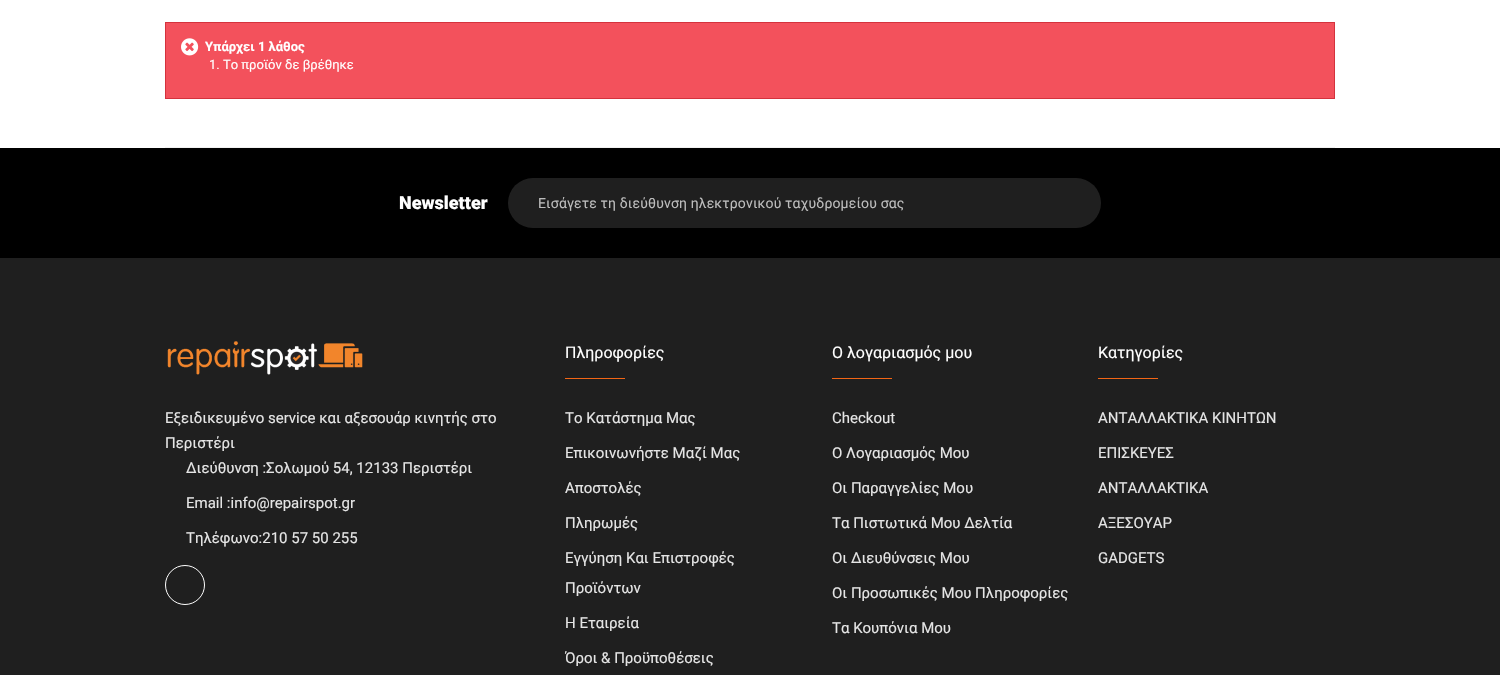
static SkFont makeFont(const char* family, int weight, float size, bool italic = false) {
  SkFontStyle style(weight, SkFontStyle::kNormal_Width,
    italic ? SkFontStyle::kItalic_Slant : SkFontStyle::kUpright_Slant);
  SkFont result(fontMgr->matchFamilyStyle(family, style), size);
  result.setSubpixel(true);
  return result;
}

static void text(SkCanvas* c, const char* s, float x, float y, const SkFont& font, SkColor color) {
  SkPaint ink(SkColor4f::FromColor(color));
  ink.setAntiAlias(true);
  c->drawString(s, x, y, font, ink);
}

static void spacedText(SkCanvas* c, const char* s, float x, float y, const SkFont& font, const SkPaint& ink, float letter, float word) {
  std::vector<SkGlyphID> glyphs(font.countText(s, strlen(s), SkTextEncoding::kUTF8));
  std::vector<float> xs(glyphs.size());
  font.textToGlyphs(s, strlen(s), SkTextEncoding::kUTF8, glyphs);
  font.getXPos(glyphs, xs, x);
  float extra = 0;
  for (size_t i = 0; i < glyphs.size(); i++) {
    xs[i] += extra;
    extra += letter + word * (glyphs[i] == font.unicharToGlyph(' '));
  }
  c->drawTextBlob(SkTextBlob::MakeFromPosHGlyphs(glyphs, xs, y, font), 0, 0, ink);
}

static void box(SkCanvas* c, float l, float t, float r, float b, SkColor color) {
  SkPaint ink(SkColor4f::FromColor(color));
  ink.setAntiAlias(true);
  c->drawRect(SkRect::MakeLTRB(l, t, r, b), ink);
}

static void roundBox(SkCanvas* c, float l, float t, float r, float b, float radius, SkColor color) {
  SkPaint ink(SkColor4f::FromColor(color));
  ink.setAntiAlias(true);
  c->drawRoundRect(SkRect::MakeLTRB(l, t, r, b), radius, radius, ink);
}

static void picture(SkCanvas* c, const char* path, float l, float t, float r, float b) {
  auto image = SkImages::DeferredFromEncodedData(SkData::MakeFromFileName(path));
  c->drawImageRect(image, SkRect::MakeLTRB(l, t, r, b), SkSamplingOptions());
}

void draw(SkCanvas* c) {
  SkPaint paint;
  paint.setAntiAlias(true);
  c->clear(0xffffffff);
  paint.setColor(0xfff3515c);
  c->drawRect(SkRect::MakeLTRB(165.5f, 22.5f, 1334.5f, 98.5f), paint);
  paint.setStyle(SkPaint::kStroke_Style);
  paint.setStrokeWidth(1);
  paint.setColor(0xffd4323d);
  c->drawRect(SkRect::MakeLTRB(165.5f, 22.5f, 1334.5f, 98.5f), paint);
  picture(c, "img_01.png", 181, 38, 199, 56);
  SkFont face1 = makeFont("Roboto", 700, 13);
  text(c, "Υπάρχει 1 λάθος", 205, 51, face1, 0xffffffff);
  SkFont face2 = makeFont("Roboto", 400, 13);
  text(c, "1. Το προϊόν δε βρέθηκε", 209, 69, face2, 0xffffffff);
  box(c, 165, 147, 1335, 148, 0xfff2f2f2);
  box(c, 0, 258, 1500, 675, 0xff1f1f1f);
  box(c, 0, 148, 1500, 258, 0xff000000);
  SkFont face3 = makeFont("Roboto", 900, 18);
  text(c, "Newsletter", 399, 209, face3, 0xffffffff);
  roundBox(c, 508, 178, 1101, 228, 25, 0xff1f1f1f);
  SkFont face4 = makeFont("Roboto", 400, 14);
  paint.setStyle(SkPaint::kFill_Style);
  paint.setColor(0xffbcbcbc);
  spacedText(c, "Εισάγετε τη διεύθυνση ηλεκτρονικού ταχυδρομείου σας", 538, 208, face4, paint, 0.15f, 0);
  picture(c, "img_02.png", 167, 341, 363, 375);
  SkFont face5 = makeFont("Roboto", 400, 15);
  text(c, "Εξειδικευμένο service και αξεσουάρ κινητής στο", 165, 423, face5, 0xffe5e5e5);
  text(c, "Περιστέρι", 165, 448, face5, 0xffe5e5e5);
  text(c, "Διεύθυνση :Σολωμού 54, 12133 Περιστέρι", 186, 473, face5, 0xffe5e5e5);
  text(c, "Email :info@repairspot.gr", 186, 508, face5, 0xffe5e5e5);
  text(c, "Τηλέφωνο:210 57 50 255", 186, 543, face5, 0xffe5e5e5);
  paint.setStyle(SkPaint::kStroke_Style);
  paint.setColor(0xffffffff);
  c->drawCircle(185, 585, 19.5f, paint);
  SkFont face6 = makeFont("Roboto", 400, 16);
  text(c, "Πληροφορίες", 565, 358, face6, 0xffffffff);
  box(c, 565, 378, 625, 379, 0xfff26616);
  text(c, "Το Κατάστημα Μας", 565, 423, face5, 0xffe5e5e5);
  text(c, "Επικοινωνήστε Μαζί Μας", 565, 458, face5, 0xffe5e5e5);
  text(c, "Αποστολές", 565, 493, face5, 0xffe5e5e5);
  text(c, "Πληρωμές", 565, 528, face5, 0xffe5e5e5);
  text(c, "Εγγύηση Και Επιστροφές", 565, 563, face5, 0xffe5e5e5);
  text(c, "Προϊόντων", 565, 593, face5, 0xffe5e5e5);
  text(c, "Η Εταιρεία", 565, 628, face5, 0xffe5e5e5);
  text(c, "Όροι & Προϋποθέσεις", 565, 663, face5, 0xffe5e5e5);
  text(c, "Ο λογαριασμός μου", 832, 358, face6, 0xffffffff);
  box(c, 832, 378, 892, 379, 0xfff26616);
  text(c, "Checkout", 832, 423, face5, 0xffe5e5e5);
  text(c, "Ο Λογαριασμός Μου", 832, 458, face5, 0xffe5e5e5);
  text(c, "Οι Παραγγελίες Μου", 832, 493, face5, 0xffe5e5e5);
  text(c, "Τα Πιστωτικά Μου Δελτία", 832, 528, face5, 0xffe5e5e5);
  text(c, "Οι Διευθύνσεις Μου", 832, 563, face5, 0xffe5e5e5);
  text(c, "Οι Προσωπικές Μου Πληροφορίες", 832, 598, face5, 0xffe5e5e5);
  text(c, "Τα Κουπόνια Μου", 832, 633, face5, 0xffe5e5e5);
  text(c, "Κατηγορίες", 1098, 358, face6, 0xffffffff);
  box(c, 1098, 378, 1158, 379, 0xfff26616);
  text(c, "ΑΝΤΑΛΛΑΚΤΙΚΑ ΚΙΝΗΤΩΝ", 1098, 423, face5, 0xffe5e5e5);
  text(c, "ΕΠΙΣΚΕΥΕΣ", 1098, 458, face5, 0xffe5e5e5);
  text(c, "ΑΝΤΑΛΛΑΚΤΙΚΑ", 1098, 493, face5, 0xffe5e5e5);
  text(c, "ΑΞΕΣΟΥΑΡ", 1098, 528, face5, 0xffe5e5e5);
  text(c, "GADGETS", 1098, 563, face5, 0xffe5e5e5);
}
